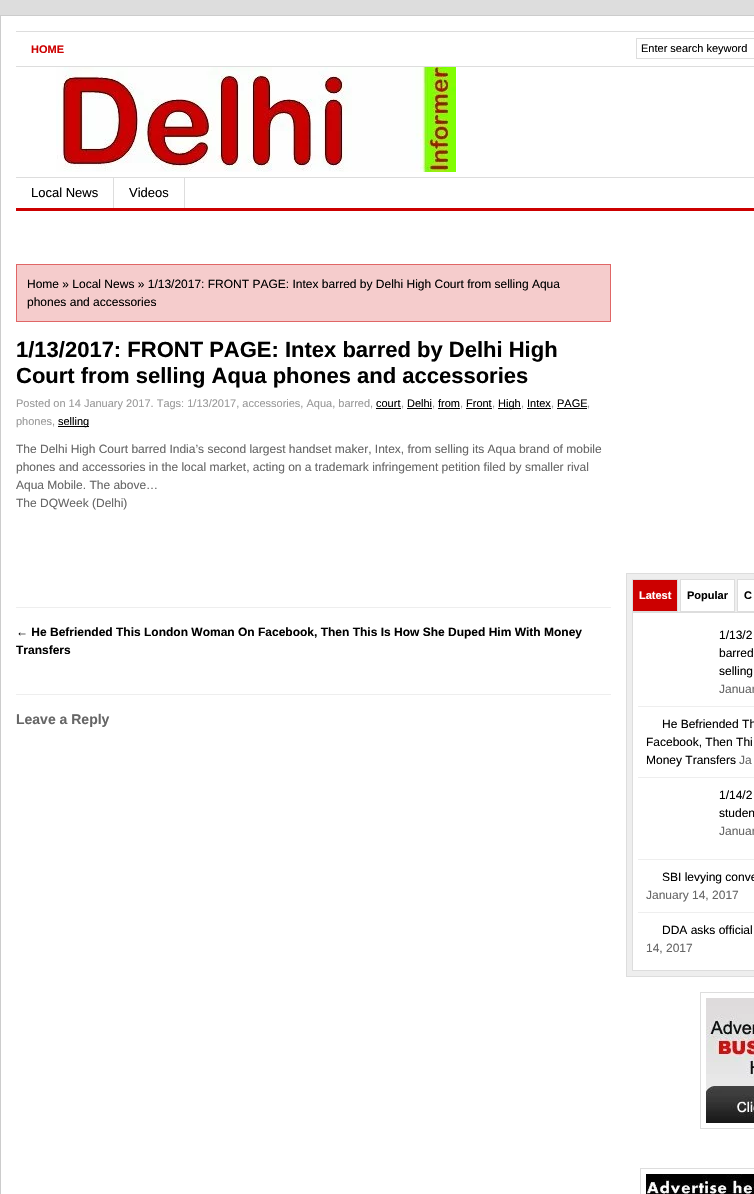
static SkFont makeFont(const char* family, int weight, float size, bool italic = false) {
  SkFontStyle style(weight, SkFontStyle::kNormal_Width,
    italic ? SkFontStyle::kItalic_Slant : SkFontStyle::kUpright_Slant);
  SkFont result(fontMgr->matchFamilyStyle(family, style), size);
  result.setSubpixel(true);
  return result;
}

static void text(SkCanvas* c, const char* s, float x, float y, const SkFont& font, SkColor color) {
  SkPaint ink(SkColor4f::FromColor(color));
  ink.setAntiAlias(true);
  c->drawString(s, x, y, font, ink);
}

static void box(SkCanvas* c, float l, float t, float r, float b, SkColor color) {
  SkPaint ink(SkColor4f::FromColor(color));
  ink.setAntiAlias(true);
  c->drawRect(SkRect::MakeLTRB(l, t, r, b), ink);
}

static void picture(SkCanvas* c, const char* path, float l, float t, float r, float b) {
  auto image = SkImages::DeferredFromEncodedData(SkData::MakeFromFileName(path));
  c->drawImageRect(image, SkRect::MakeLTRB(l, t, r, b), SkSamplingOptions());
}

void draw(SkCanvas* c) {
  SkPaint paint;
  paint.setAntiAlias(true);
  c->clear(0xffdddddd);
  paint.setColor(0xffffffff);
  c->drawRect(SkRect::MakeLTRB(0.5f, 15.5f, 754.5f, 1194.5f), paint);
  paint.setStyle(SkPaint::kStroke_Style);
  paint.setStrokeWidth(1);
  paint.setColor(0xffcccccc);
  c->drawRect(SkRect::MakeLTRB(0.5f, 15.5f, 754.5f, 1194.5f), paint);
  box(c, 16, 31, 754, 32, 0xffdddddd);
  box(c, 16, 66, 754, 67, 0xffdddddd);
  SkFont face1 = makeFont("Liberation Sans", 700, 11);
  text(c, "HOME", 31, 53, face1, 0xffcc0000);
  paint.setColor(0xffdddddd);
  c->drawRect(SkRect::MakeLTRB(636.5f, 38.5f, 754.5f, 58.5f), paint);
  SkFont face2 = makeFont("Liberation Sans", 400, 11);
  text(c, "Enter search keyword", 641, 52, face2, 0xff000000);
  picture(c, "img_01.png", 56, 67, 456, 172);
  box(c, 16, 177, 754, 178, 0xffdddddd);
  box(c, 16, 208, 754, 211, 0xffcc0000);
  box(c, 113, 178, 114, 208, 0xffdddddd);
  SkFont face3 = makeFont("Liberation Sans", 400, 13);
  text(c, "Local News", 31, 197, face3, 0xff000000);
  box(c, 184, 178, 185, 208, 0xffdddddd);
  text(c, "Videos", 129, 197, face3, 0xff000000);
  paint.setStyle(SkPaint::kFill_Style);
  paint.setColor(0xfff5cccc);
  c->drawRect(SkRect::MakeLTRB(16.5f, 264.5f, 610.5f, 321.5f), paint);
  paint.setStyle(SkPaint::kStroke_Style);
  paint.setColor(0xffe06666);
  c->drawRect(SkRect::MakeLTRB(16.5f, 264.5f, 610.5f, 321.5f), paint);
  SkFont face4 = makeFont("Liberation Sans", 400, 12);
  text(c, "Home » Local News » 1/13/2017: FRONT PAGE: Intex barred by Delhi High Court from selling Aqua", 27, 288, face4, 0xff000000);
  text(c, "phones and accessories", 27, 306, face4, 0xff000000);
  SkFont face5 = makeFont("Liberation Sans", 700, 22);
  text(c, "1/13/2017: FRONT PAGE: Intex barred by Delhi High", 16, 357, face5, 0xff000000);
  text(c, "Court from selling Aqua phones and accessories", 16, 383, face5, 0xff000000);
  text(c, "Posted on 14 January 2017. Tags: 1/13/2017, accessories, Aqua, barred,", 16, 407, face2, 0xff999999);
  text(c, "court", 376, 407, face2, 0xff000000);
  text(c, ",", 401, 407, face2, 0xff999999);
  box(c, 376, 408, 401, 409, 0xff000000);
  text(c, "Delhi", 407, 407, face2, 0xff000000);
  text(c, ",", 432, 407, face2, 0xff999999);
  box(c, 407, 408, 432, 409, 0xff000000);
  text(c, "from", 438, 407, face2, 0xff000000);
  text(c, ",", 460, 407, face2, 0xff999999);
  box(c, 438, 408, 460, 409, 0xff000000);
  text(c, "Front", 466, 407, face2, 0xff000000);
  text(c, ",", 492, 407, face2, 0xff999999);
  box(c, 466, 408, 492, 409, 0xff000000);
  box(c, 498, 408, 521, 409, 0xff000000);
  text(c, "High", 498, 407, face2, 0xff000000);
  text(c, ",", 521, 407, face2, 0xff999999);
  text(c, "Intex", 527, 407, face2, 0xff000000);
  text(c, ",", 551, 407, face2, 0xff999999);
  box(c, 527, 408, 551, 409, 0xff000000);
  text(c, "PAGE", 557, 407, face2, 0xff000000);
  text(c, ",", 587, 407, face2, 0xff999999);
  box(c, 557, 408, 587, 409, 0xff000000);
  text(c, "phones,", 16, 425, face2, 0xff999999);
  box(c, 58, 426, 89, 427, 0xff000000);
  text(c, "selling", 58, 425, face2, 0xff000000);
  text(c, "The Delhi High Court barred India’s second largest handset maker, Intex, from selling its Aqua brand of mobile", 16, 453, face4, 0xff666666);
  text(c, "phones and accessories in the local market, acting on a trademark infringement petition filed by smaller rival", 16, 471, face4, 0xff666666);
  text(c, "Aqua Mobile. The above…", 16, 489, face4, 0xff666666);
  text(c, "The DQWeek (Delhi)", 16, 507, face4, 0xff666666);
  box(c, 16, 607, 611, 608, 0xffeeeeee);
  box(c, 16, 694, 611, 695, 0xffeeeeee);
  SkFont face6 = makeFont("Liberation Sans", 700, 12);
  text(c, "← He Befriended This London Woman On Facebook, Then This Is How She Duped Him With Money", 16, 636, face6, 0xff000000);
  text(c, "Transfers", 16, 654, face6, 0xff000000);
  SkFont face7 = makeFont("Liberation Sans", 700, 14);
  text(c, "Leave a Reply", 16, 724, face7, 0xff666666);
  paint.setStyle(SkPaint::kFill_Style);
  paint.setColor(0xffeeeeee);
  c->drawRect(SkRect::MakeLTRB(626.5f, 573.5f, 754.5f, 976.5f), paint);
  paint.setStyle(SkPaint::kStroke_Style);
  paint.setColor(0xffdddddd);
  c->drawRect(SkRect::MakeLTRB(626.5f, 573.5f, 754.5f, 976.5f), paint);
  c->drawRect(SkRect::MakeLTRB(632.5f, 579.5f, 677.5f, 611.5f), paint);
  box(c, 633, 580, 677, 611, 0xffcc0000);
  text(c, "Latest", 639, 599, face1, 0xffffffff);
  paint.setStyle(SkPaint::kFill_Style);
  paint.setColor(0xffffffff);
  c->drawRect(SkRect::MakeLTRB(680.5f, 579.5f, 734.5f, 611.5f), paint);
  paint.setStyle(SkPaint::kStroke_Style);
  paint.setColor(0xffdddddd);
  c->drawRect(SkRect::MakeLTRB(680.5f, 579.5f, 734.5f, 611.5f), paint);
  text(c, "Popular", 687, 599, face1, 0xff000000);
  paint.setStyle(SkPaint::kFill_Style);
  paint.setColor(0xffffffff);
  c->drawRect(SkRect::MakeLTRB(737.5f, 579.5f, 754.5f, 611.5f), paint);
  paint.setStyle(SkPaint::kStroke_Style);
  paint.setColor(0xffdddddd);
  c->drawRect(SkRect::MakeLTRB(737.5f, 579.5f, 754.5f, 611.5f), paint);
  text(c, "C", 744, 599, face1, 0xff000000);
  paint.setStyle(SkPaint::kFill_Style);
  paint.setColor(0xffffffff);
  c->drawRect(SkRect::MakeLTRB(632.5f, 612.5f, 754.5f, 970.5f), paint);
  paint.setStyle(SkPaint::kStroke_Style);
  paint.setColor(0xffdddddd);
  c->drawRect(SkRect::MakeLTRB(632.5f, 612.5f, 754.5f, 970.5f), paint);
  box(c, 638, 706, 754, 707, 0xffeeeeee);
  text(c, "1/13/2", 719, 639, face4, 0xff000000);
  text(c, "barred", 719, 657, face4, 0xff000000);
  text(c, "selling", 719, 675, face4, 0xff000000);
  text(c, "Januar", 719, 693, face4, 0xff666666);
  box(c, 638, 777, 754, 778, 0xffeeeeee);
  text(c, "He Befriended Th", 662, 728, face4, 0xff000000);
  text(c, "Facebook, Then Thi", 646, 746, face4, 0xff000000);
  text(c, "Money Transfers", 646, 764, face4, 0xff000000);
  text(c, "Ja", 739, 764, face4, 0xff666666);
  box(c, 638, 859, 754, 860, 0xffeeeeee);
  text(c, "1/14/2", 719, 799, face4, 0xff000000);
  text(c, "studen", 719, 817, face4, 0xff000000);
  text(c, "Januar", 719, 835, face4, 0xff666666);
  box(c, 638, 912, 754, 913, 0xffeeeeee);
  text(c, "SBI levying conve", 662, 881, face4, 0xff000000);
  text(c, "January 14, 2017", 646, 899, face4, 0xff666666);
  text(c, "DDA asks official", 662, 934, face4, 0xff000000);
  text(c, "14, 2017", 646, 952, face4, 0xff666666);
  c->drawRect(SkRect::MakeLTRB(700.5f, 992.5f, 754.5f, 1128.5f), paint);
  picture(c, "img_02.png", 706, 998, 754, 1123);
  c->drawRect(SkRect::MakeLTRB(640.5f, 1168.5f, 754.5f, 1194.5f), paint);
  picture(c, "img_03.png", 646, 1174, 754, 1194);
}
